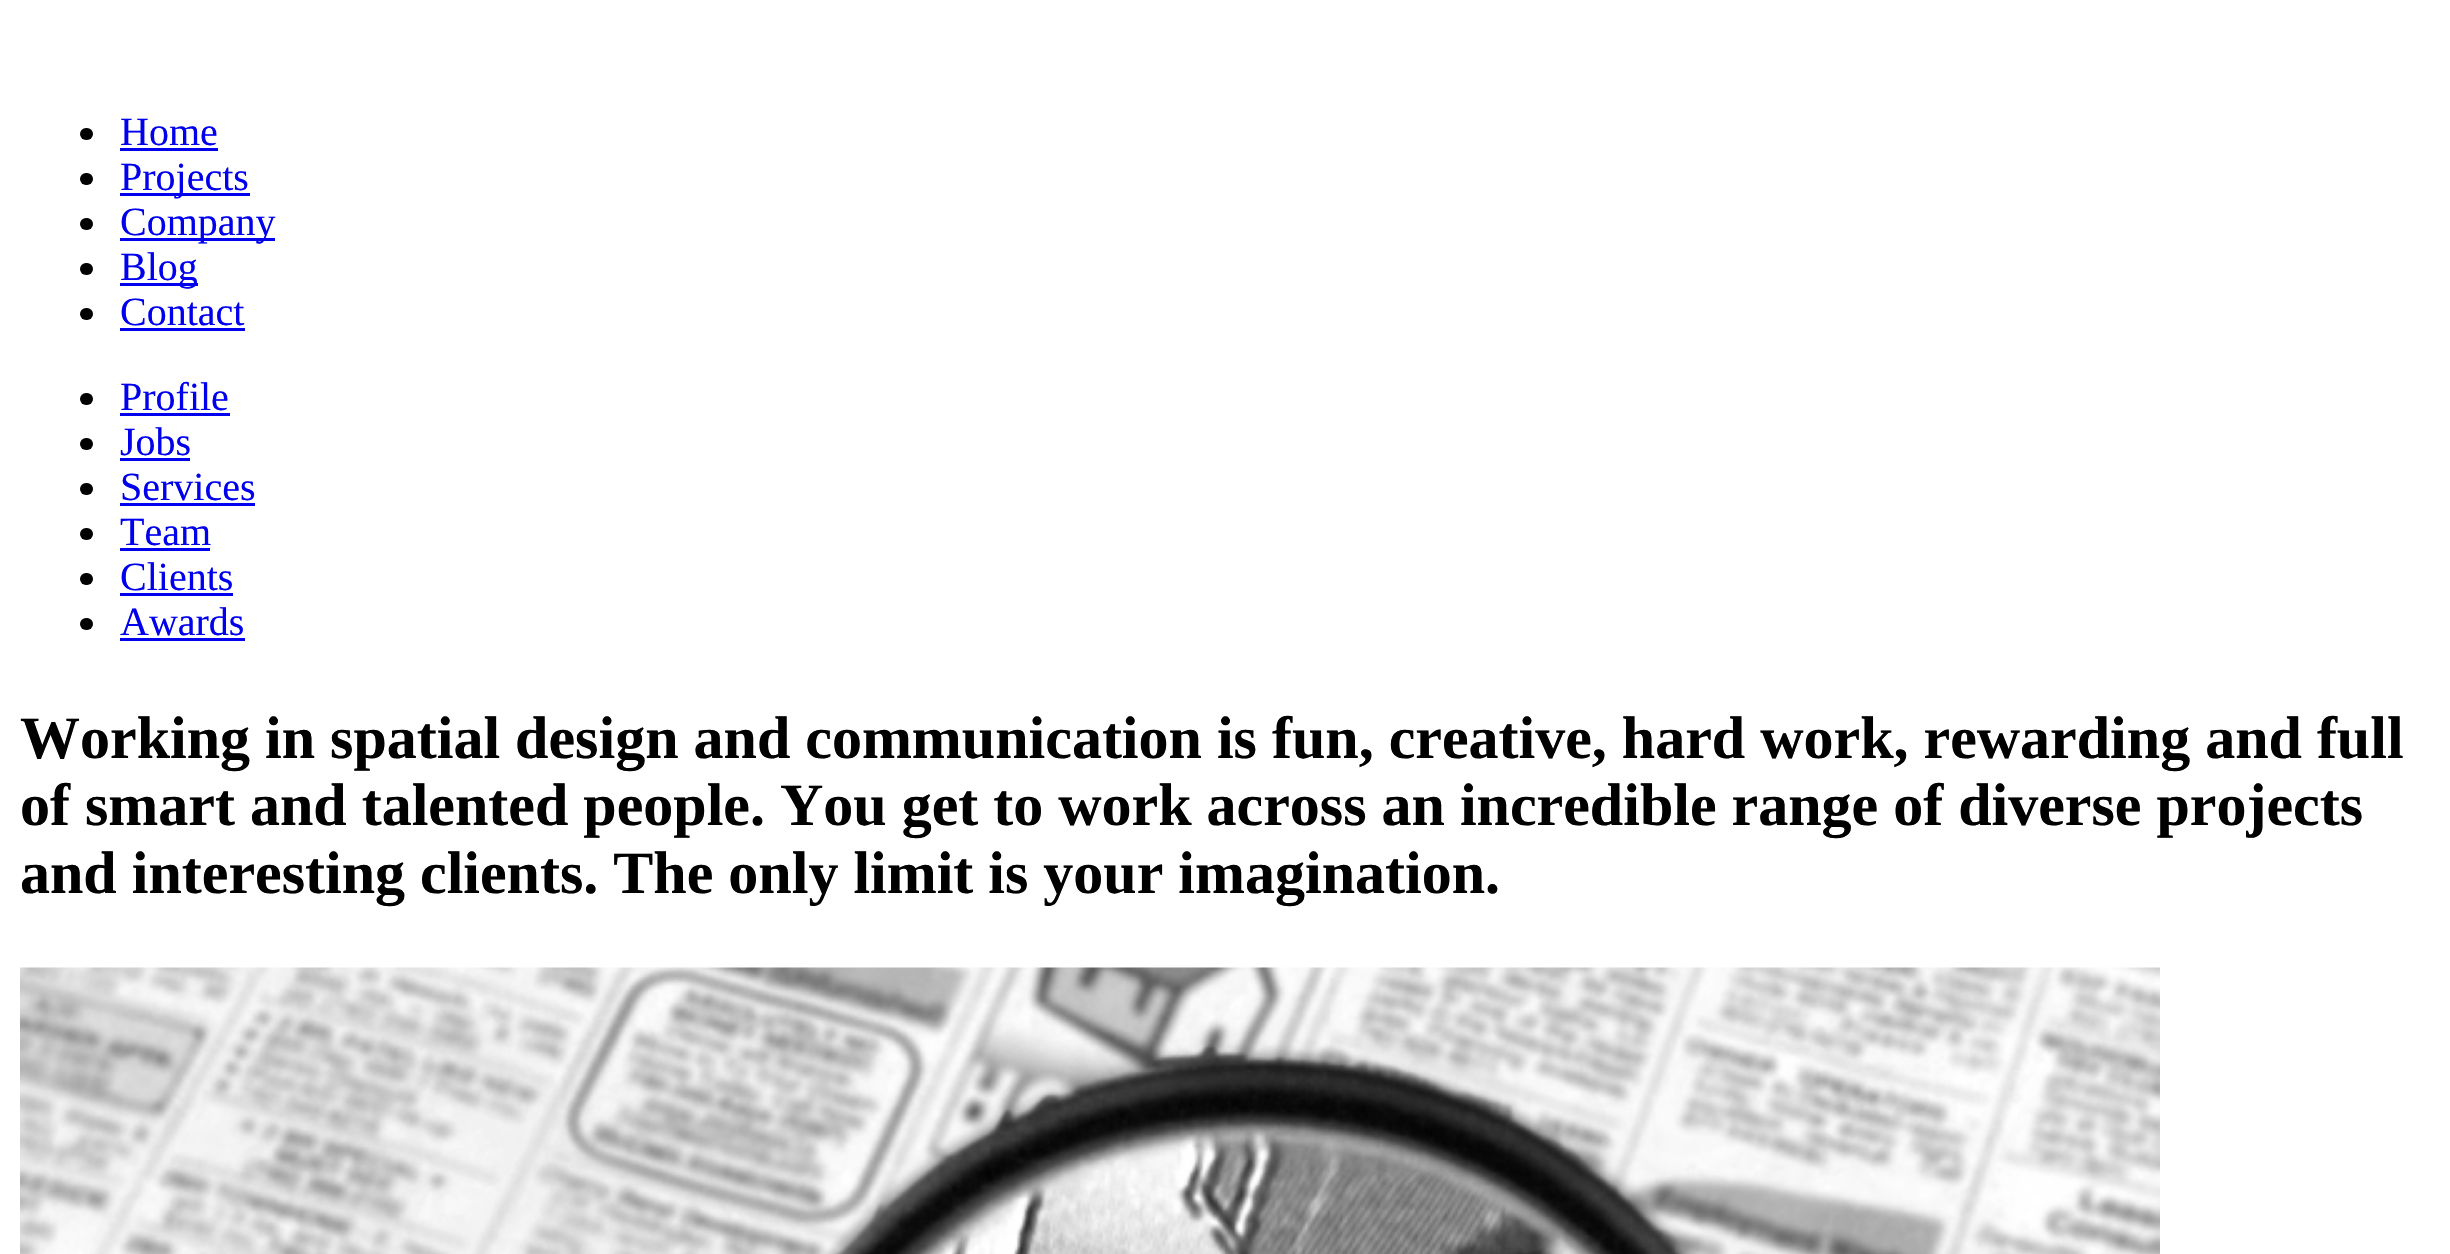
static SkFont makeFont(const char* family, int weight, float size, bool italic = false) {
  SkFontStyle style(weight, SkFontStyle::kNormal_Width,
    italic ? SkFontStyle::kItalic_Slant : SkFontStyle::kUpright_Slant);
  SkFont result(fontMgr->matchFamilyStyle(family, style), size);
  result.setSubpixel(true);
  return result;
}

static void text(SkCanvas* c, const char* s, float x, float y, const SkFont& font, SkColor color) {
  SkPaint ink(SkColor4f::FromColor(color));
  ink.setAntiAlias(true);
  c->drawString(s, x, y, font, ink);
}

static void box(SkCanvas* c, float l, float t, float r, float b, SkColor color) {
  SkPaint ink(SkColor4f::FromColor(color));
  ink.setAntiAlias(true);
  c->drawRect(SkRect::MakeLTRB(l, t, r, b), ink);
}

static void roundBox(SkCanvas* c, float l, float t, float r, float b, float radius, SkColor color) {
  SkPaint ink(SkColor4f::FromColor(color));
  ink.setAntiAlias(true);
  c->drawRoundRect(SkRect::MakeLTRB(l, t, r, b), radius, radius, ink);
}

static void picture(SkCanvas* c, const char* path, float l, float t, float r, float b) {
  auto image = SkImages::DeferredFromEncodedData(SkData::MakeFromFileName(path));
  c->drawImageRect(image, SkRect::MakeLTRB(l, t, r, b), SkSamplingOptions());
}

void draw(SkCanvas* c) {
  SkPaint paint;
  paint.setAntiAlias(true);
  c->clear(0xffffffff);
  roundBox(c, 80, 128, 93, 140, 6, 0xff000000);
  SkFont face1 = makeFont("Liberation Serif", 400, 40);
  text(c, "Home", 120, 145, face1, 0xff0000ee);
  box(c, 120, 148, 218, 151, 0xff0000ee);
  roundBox(c, 80, 173, 93, 185, 6, 0xff000000);
  box(c, 120, 193, 250, 196, 0xff0000ee);
  text(c, "Projects", 120, 190, face1, 0xff0000ee);
  roundBox(c, 80, 218, 93, 230, 6, 0xff000000);
  box(c, 120, 238, 275, 241, 0xff0000ee);
  text(c, "Company", 120, 235, face1, 0xff0000ee);
  roundBox(c, 80, 263, 93, 275, 6, 0xff000000);
  box(c, 120, 283, 198, 286, 0xff0000ee);
  text(c, "Blog", 120, 280, face1, 0xff0000ee);
  roundBox(c, 80, 308, 93, 320, 6, 0xff000000);
  text(c, "Contact", 120, 325, face1, 0xff0000ee);
  box(c, 120, 328, 245, 331, 0xff0000ee);
  roundBox(c, 80, 393, 93, 405, 6, 0xff000000);
  text(c, "Profile", 120, 410, face1, 0xff0000ee);
  box(c, 120, 413, 230, 416, 0xff0000ee);
  roundBox(c, 80, 438, 93, 450, 6, 0xff000000);
  text(c, "Jobs", 120, 455, face1, 0xff0000ee);
  box(c, 120, 458, 190, 461, 0xff0000ee);
  roundBox(c, 80, 483, 93, 495, 6, 0xff000000);
  text(c, "Services", 120, 500, face1, 0xff0000ee);
  box(c, 120, 503, 255, 506, 0xff0000ee);
  roundBox(c, 80, 528, 93, 540, 6, 0xff000000);
  text(c, "Team", 120, 545, face1, 0xff0000ee);
  box(c, 120, 548, 210, 551, 0xff0000ee);
  roundBox(c, 80, 573, 93, 585, 6, 0xff000000);
  text(c, "Clients", 120, 590, face1, 0xff0000ee);
  box(c, 120, 593, 233, 596, 0xff0000ee);
  roundBox(c, 80, 618, 93, 630, 6, 0xff000000);
  text(c, "Awards", 120, 635, face1, 0xff0000ee);
  box(c, 120, 638, 245, 641, 0xff0000ee);
  SkFont face2 = makeFont("Liberation Serif", 700, 60);
  text(c, "Working in spatial design and communication is fun, creative, hard work, rewarding and full", 20, 758, face2, 0xff000000);
  text(c, "of smart and talented people. You get to work across an incredible range of diverse projects", 20, 825, face2, 0xff000000);
  text(c, "and interesting clients. The only limit is your imagination.", 20, 893, face2, 0xff000000);
  picture(c, "img_01.png", 20, 967, 2160, 1254);
}
